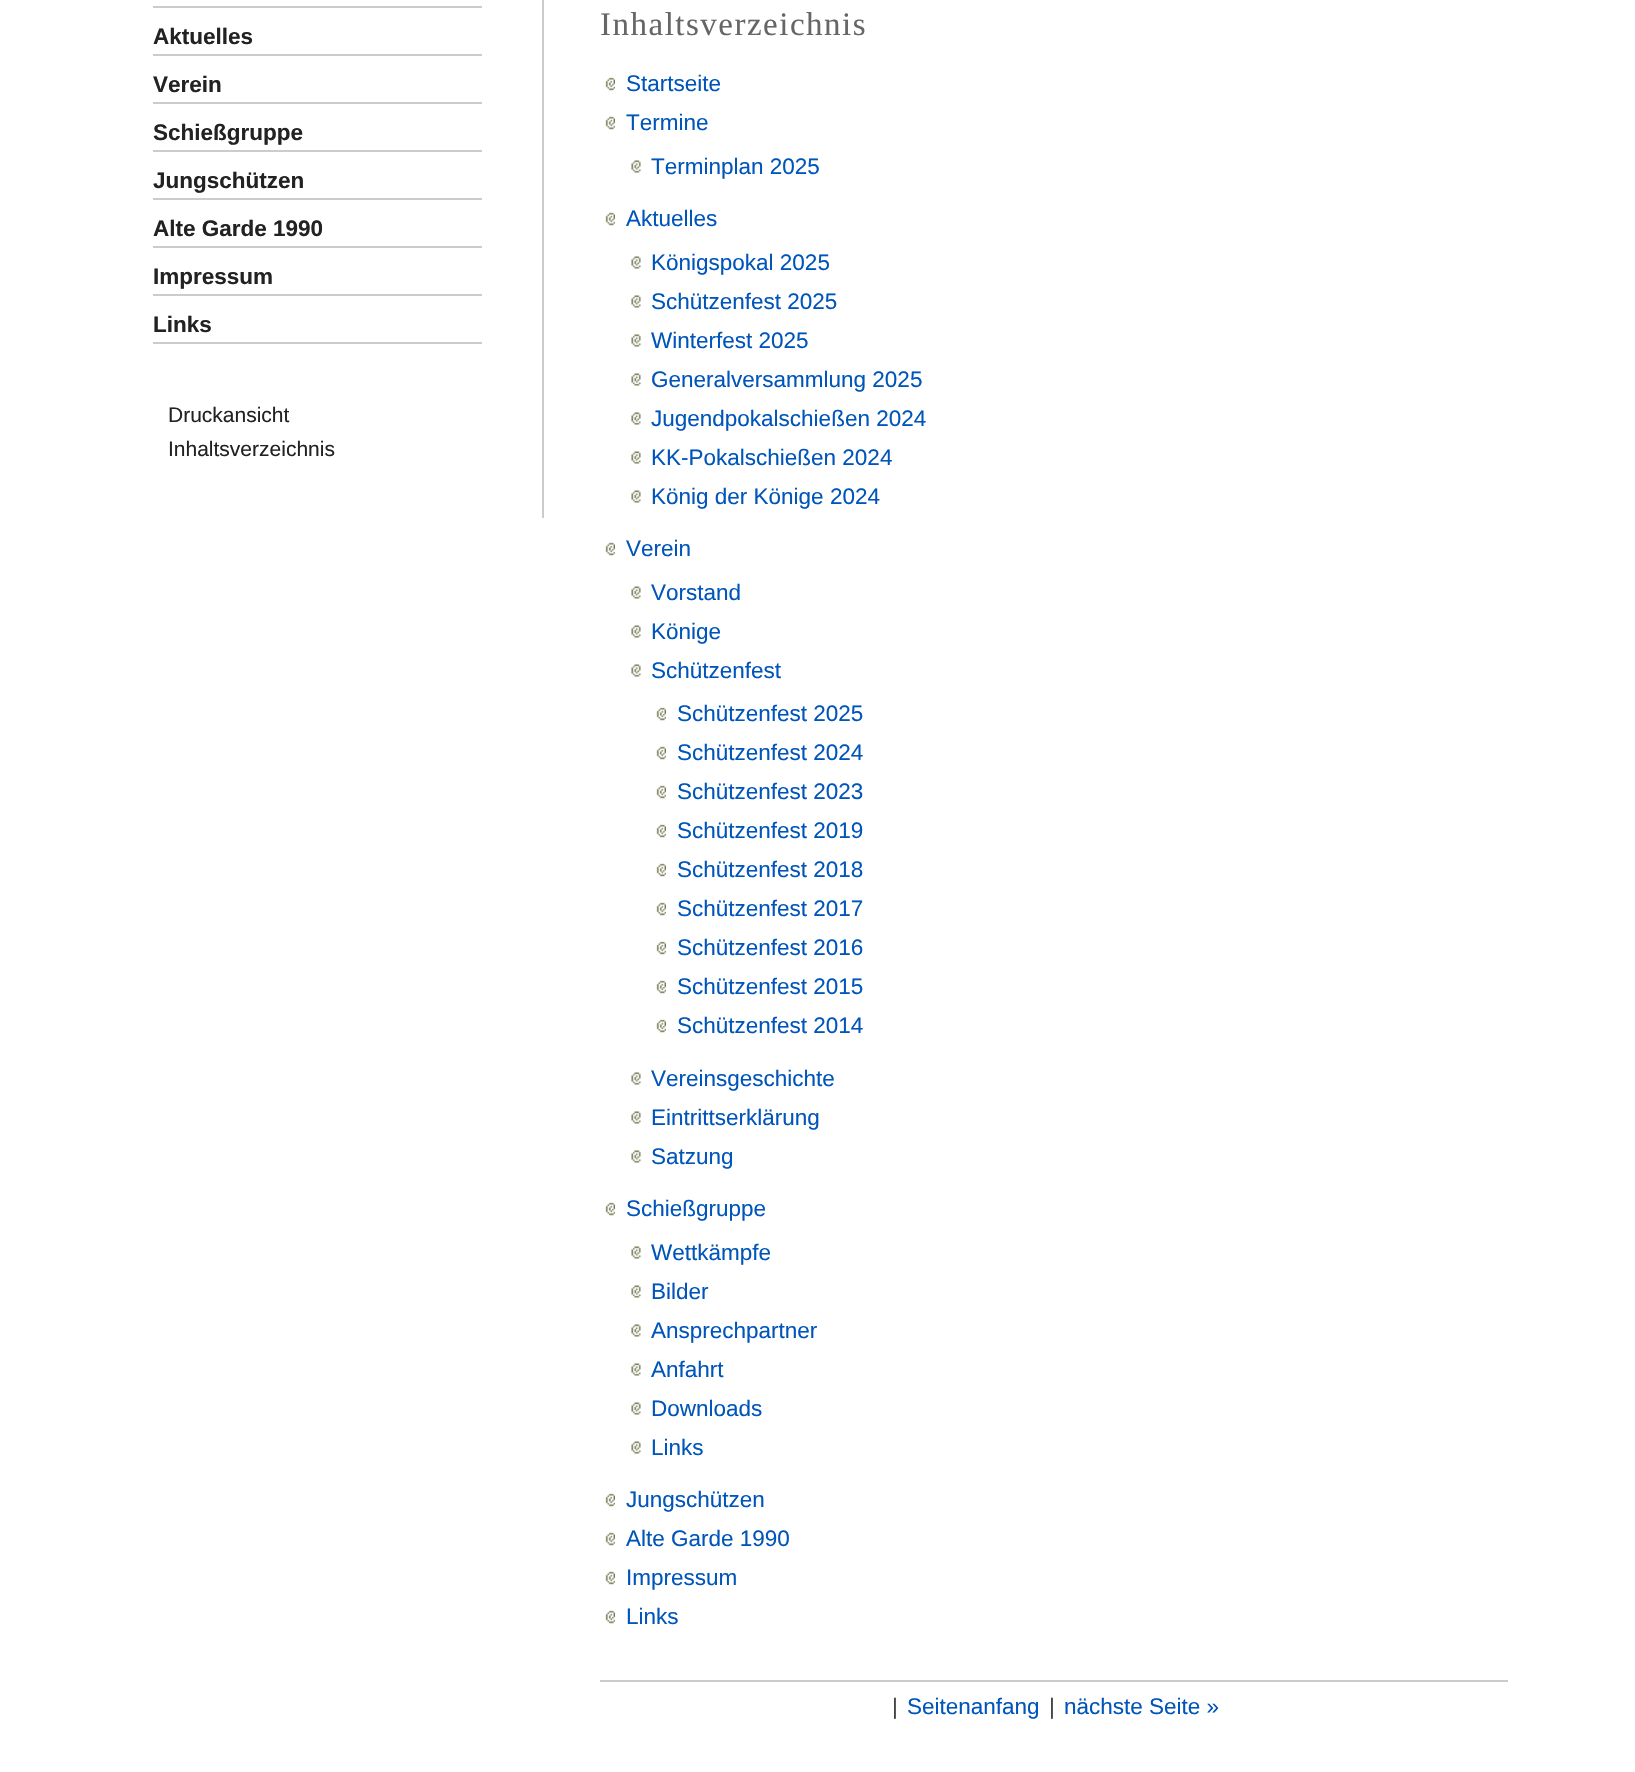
static SkFont makeFont(const char* family, int weight, float size, bool italic = false) {
  SkFontStyle style(weight, SkFontStyle::kNormal_Width,
    italic ? SkFontStyle::kItalic_Slant : SkFontStyle::kUpright_Slant);
  SkFont result(fontMgr->matchFamilyStyle(family, style), size);
  result.setSubpixel(true);
  return result;
}

static void text(SkCanvas* c, const char* s, float x, float y, const SkFont& font, SkColor color) {
  SkPaint ink(SkColor4f::FromColor(color));
  ink.setAntiAlias(true);
  c->drawString(s, x, y, font, ink);
}

static void spacedText(SkCanvas* c, const char* s, float x, float y, const SkFont& font, const SkPaint& ink, float letter, float word) {
  std::vector<SkGlyphID> glyphs(font.countText(s, strlen(s), SkTextEncoding::kUTF8));
  std::vector<float> xs(glyphs.size());
  font.textToGlyphs(s, strlen(s), SkTextEncoding::kUTF8, glyphs);
  font.getXPos(glyphs, xs, x);
  float extra = 0;
  for (size_t i = 0; i < glyphs.size(); i++) {
    xs[i] += extra;
    extra += letter + word * (glyphs[i] == font.unicharToGlyph(' '));
  }
  c->drawTextBlob(SkTextBlob::MakeFromPosHGlyphs(glyphs, xs, y, font), 0, 0, ink);
}

static void box(SkCanvas* c, float l, float t, float r, float b, SkColor color) {
  SkPaint ink(SkColor4f::FromColor(color));
  ink.setAntiAlias(true);
  c->drawRect(SkRect::MakeLTRB(l, t, r, b), ink);
}

static void picture(SkCanvas* c, const char* path, float l, float t, float r, float b) {
  auto image = SkImages::DeferredFromEncodedData(SkData::MakeFromFileName(path));
  c->drawImageRect(image, SkRect::MakeLTRB(l, t, r, b), SkSamplingOptions());
}

void draw(SkCanvas* c) {
  SkPaint paint;
  paint.setAntiAlias(true);
  c->clear(0xffffffff);
  box(c, 542, 0, 544, 518, 0xffcccccc);
  box(c, 153, 6, 482, 8, 0xffcccccc);
  box(c, 153, 54, 482, 56, 0xffcccccc);
  SkFont face1 = makeFont("Liberation Sans", 700, 22.5f);
  text(c, "Aktuelles", 153, 44, face1, 0xff222222);
  box(c, 153, 102, 482, 104, 0xffcccccc);
  text(c, "Verein", 153, 92, face1, 0xff222222);
  box(c, 153, 150, 482, 152, 0xffcccccc);
  text(c, "Schießgruppe", 153, 140, face1, 0xff222222);
  box(c, 153, 198, 482, 200, 0xffcccccc);
  text(c, "Jungschützen", 153, 188, face1, 0xff222222);
  box(c, 153, 246, 482, 248, 0xffcccccc);
  text(c, "Alte Garde 1990", 153, 236, face1, 0xff222222);
  box(c, 153, 294, 482, 296, 0xffcccccc);
  text(c, "Impressum", 153, 284, face1, 0xff222222);
  box(c, 153, 342, 482, 344, 0xffcccccc);
  text(c, "Links", 153, 332, face1, 0xff222222);
  SkFont face2 = makeFont("Liberation Sans", 400, 21);
  text(c, "Druckansicht", 168, 422, face2, 0xff222222);
  text(c, "Inhaltsverzeichnis", 168, 456, face2, 0xff222222);
  SkFont face3 = makeFont("Liberation Serif", 400, 33);
  paint.setColor(0xff666666);
  spacedText(c, "Inhaltsverzeichnis", 600, 35, face3, paint, 1.5f, 0);
  picture(c, "img_01.png", 605, 77, 615, 91);
  SkFont face4 = makeFont("Liberation Sans", 400, 22.5f);
  text(c, "Startseite", 626, 91, face4, 0xff0055bb);
  picture(c, "img_01.png", 605, 116, 615, 130);
  text(c, "Termine", 626, 130, face4, 0xff0055bb);
  picture(c, "img_02.png", 631, 160, 641, 173);
  text(c, "Terminplan 2025", 651, 174, face4, 0xff0055bb);
  picture(c, "img_01.png", 605, 212, 615, 226);
  text(c, "Aktuelles", 626, 226, face4, 0xff0055bb);
  picture(c, "img_02.png", 631, 256, 641, 269);
  text(c, "Königspokal 2025", 651, 270, face4, 0xff0055bb);
  picture(c, "img_02.png", 631, 295, 641, 308);
  text(c, "Schützenfest 2025", 651, 309, face4, 0xff0055bb);
  picture(c, "img_02.png", 631, 334, 641, 347);
  text(c, "Winterfest 2025", 651, 348, face4, 0xff0055bb);
  picture(c, "img_02.png", 631, 373, 641, 386);
  text(c, "Generalversammlung 2025", 651, 387, face4, 0xff0055bb);
  picture(c, "img_02.png", 631, 412, 641, 425);
  text(c, "Jugendpokalschießen 2024", 651, 426, face4, 0xff0055bb);
  picture(c, "img_02.png", 631, 451, 641, 464);
  text(c, "KK-Pokalschießen 2024", 651, 465, face4, 0xff0055bb);
  picture(c, "img_02.png", 631, 490, 641, 503);
  text(c, "König der Könige 2024", 651, 504, face4, 0xff0055bb);
  picture(c, "img_01.png", 605, 542, 615, 556);
  text(c, "Verein", 626, 556, face4, 0xff0055bb);
  picture(c, "img_02.png", 631, 586, 641, 599);
  text(c, "Vorstand", 651, 600, face4, 0xff0055bb);
  picture(c, "img_02.png", 631, 625, 641, 638);
  text(c, "Könige", 651, 639, face4, 0xff0055bb);
  picture(c, "img_02.png", 631, 664, 641, 677);
  text(c, "Schützenfest", 651, 678, face4, 0xff0055bb);
  picture(c, "img_01.png", 656, 707, 666, 721);
  text(c, "Schützenfest 2025", 677, 721, face4, 0xff0055bb);
  picture(c, "img_01.png", 656, 746, 666, 760);
  text(c, "Schützenfest 2024", 677, 760, face4, 0xff0055bb);
  picture(c, "img_01.png", 656, 785, 666, 799);
  text(c, "Schützenfest 2023", 677, 799, face4, 0xff0055bb);
  picture(c, "img_01.png", 656, 824, 666, 838);
  text(c, "Schützenfest 2019", 677, 838, face4, 0xff0055bb);
  picture(c, "img_01.png", 656, 863, 666, 877);
  text(c, "Schützenfest 2018", 677, 877, face4, 0xff0055bb);
  picture(c, "img_01.png", 656, 902, 666, 916);
  text(c, "Schützenfest 2017", 677, 916, face4, 0xff0055bb);
  picture(c, "img_01.png", 656, 941, 666, 955);
  text(c, "Schützenfest 2016", 677, 955, face4, 0xff0055bb);
  picture(c, "img_01.png", 656, 980, 666, 994);
  text(c, "Schützenfest 2015", 677, 994, face4, 0xff0055bb);
  picture(c, "img_01.png", 656, 1019, 666, 1033);
  text(c, "Schützenfest 2014", 677, 1033, face4, 0xff0055bb);
  picture(c, "img_02.png", 631, 1072, 641, 1085);
  text(c, "Vereinsgeschichte", 651, 1086, face4, 0xff0055bb);
  picture(c, "img_02.png", 631, 1111, 641, 1124);
  text(c, "Eintrittserklärung", 651, 1125, face4, 0xff0055bb);
  picture(c, "img_02.png", 631, 1150, 641, 1163);
  text(c, "Satzung", 651, 1164, face4, 0xff0055bb);
  picture(c, "img_01.png", 605, 1202, 615, 1216);
  text(c, "Schießgruppe", 626, 1216, face4, 0xff0055bb);
  picture(c, "img_02.png", 631, 1246, 641, 1259);
  text(c, "Wettkämpfe", 651, 1260, face4, 0xff0055bb);
  picture(c, "img_02.png", 631, 1285, 641, 1298);
  text(c, "Bilder", 651, 1299, face4, 0xff0055bb);
  picture(c, "img_02.png", 631, 1324, 641, 1337);
  text(c, "Ansprechpartner", 651, 1338, face4, 0xff0055bb);
  picture(c, "img_02.png", 631, 1363, 641, 1376);
  text(c, "Anfahrt", 651, 1377, face4, 0xff0055bb);
  picture(c, "img_02.png", 631, 1402, 641, 1415);
  text(c, "Downloads", 651, 1416, face4, 0xff0055bb);
  picture(c, "img_02.png", 631, 1441, 641, 1454);
  text(c, "Links", 651, 1455, face4, 0xff0055bb);
  picture(c, "img_01.png", 605, 1493, 615, 1507);
  text(c, "Jungschützen", 626, 1507, face4, 0xff0055bb);
  picture(c, "img_01.png", 605, 1532, 615, 1546);
  text(c, "Alte Garde 1990", 626, 1546, face4, 0xff0055bb);
  picture(c, "img_01.png", 605, 1571, 615, 1585);
  text(c, "Impressum", 626, 1585, face4, 0xff0055bb);
  picture(c, "img_01.png", 605, 1610, 615, 1624);
  text(c, "Links", 626, 1624, face4, 0xff0055bb);
  box(c, 600, 1680, 1508, 1682, 0xffcccccc);
  text(c, "|", 892, 1714, face4, 0xff444444);
  text(c, "Seitenanfang", 907, 1714, face4, 0xff0055bb);
  text(c, "|", 1049, 1714, face4, 0xff444444);
  text(c, "nächste Seite »", 1064, 1714, face4, 0xff0055bb);
}
